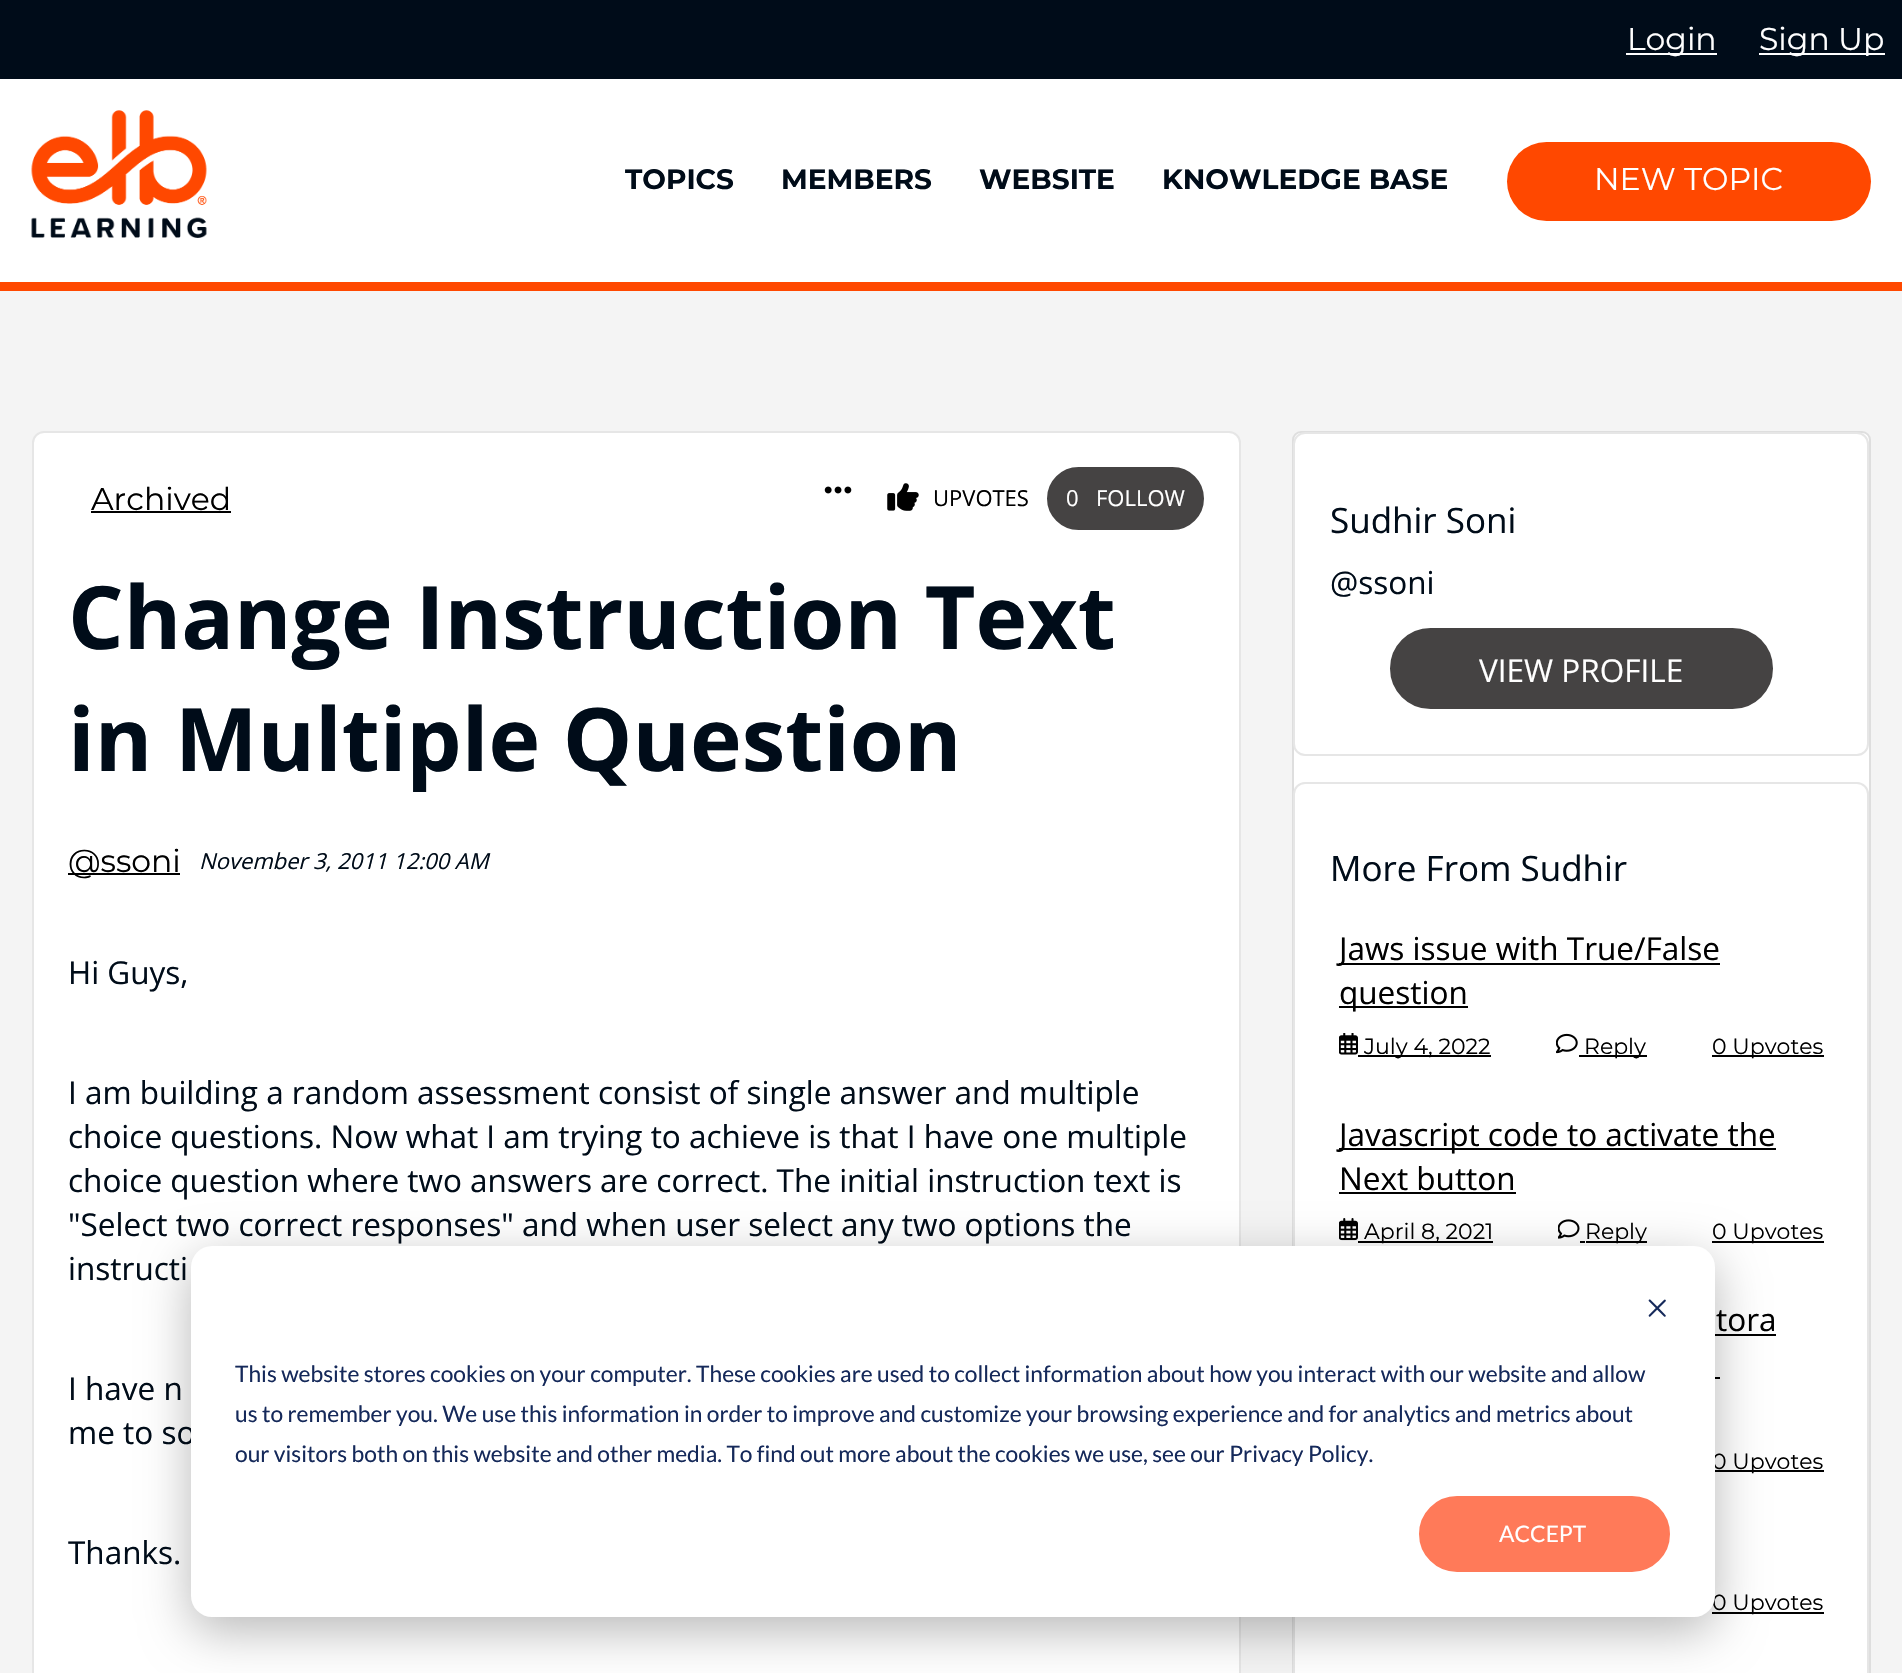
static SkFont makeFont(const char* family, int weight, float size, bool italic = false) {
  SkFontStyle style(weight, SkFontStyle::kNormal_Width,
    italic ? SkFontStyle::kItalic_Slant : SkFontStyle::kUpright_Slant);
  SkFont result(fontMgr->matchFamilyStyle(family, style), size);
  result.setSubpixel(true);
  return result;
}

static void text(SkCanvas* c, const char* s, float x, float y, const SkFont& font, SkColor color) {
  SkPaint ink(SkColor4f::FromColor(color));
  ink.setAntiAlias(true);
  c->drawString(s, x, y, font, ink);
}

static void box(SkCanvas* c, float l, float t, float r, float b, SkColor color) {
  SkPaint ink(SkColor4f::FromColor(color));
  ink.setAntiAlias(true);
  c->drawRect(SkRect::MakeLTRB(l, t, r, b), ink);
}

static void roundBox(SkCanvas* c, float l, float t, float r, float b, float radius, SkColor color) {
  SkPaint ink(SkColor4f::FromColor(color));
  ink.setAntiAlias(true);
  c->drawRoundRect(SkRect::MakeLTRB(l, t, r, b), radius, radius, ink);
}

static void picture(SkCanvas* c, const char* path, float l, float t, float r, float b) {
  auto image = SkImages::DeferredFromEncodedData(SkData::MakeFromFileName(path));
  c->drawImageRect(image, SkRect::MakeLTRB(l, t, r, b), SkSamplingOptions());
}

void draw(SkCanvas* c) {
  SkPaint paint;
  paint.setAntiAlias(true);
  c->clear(0xfff4f4f4);
  box(c, 0, 0, 1902, 79, 0xff000c19);
  box(c, 1626, 53, 1717, 55, 0xffffffff);
  SkFont face1 = makeFont("Montserrat", 400, 31.5f);
  text(c, "Login", 1627, 50, face1, 0xffffffff);
  box(c, 1759, 53, 1885, 55, 0xffffffff);
  text(c, "Sign Up", 1759, 50, face1, 0xffffffff);
  box(c, 0, 79, 1902, 282, 0xffffffff);
  picture(c, "img_01.png", 31, 110, 207, 238);
  SkFont face2 = makeFont("Montserrat", 700, 28);
  text(c, "TOPICS", 625, 189, face2, 0xff000c19);
  text(c, "MEMBERS", 781, 189, face2, 0xff000c19);
  text(c, "WEBSITE", 979, 189, face2, 0xff000c19);
  text(c, "KNOWLEDGE BASE", 1162, 189, face2, 0xff000c19);
  roundBox(c, 1507, 142, 1871, 221, 39.5f, 0xffff4800);
  text(c, "NEW TOPIC", 1594, 190, face1, 0xffffffff);
  box(c, 0, 282, 1902, 291, 0xffff4800);
  paint.setColor(0xffffffff);
  c->drawRoundRect(SkRect::MakeLTRB(33, 432, 1240, 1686), 11, 11, paint);
  paint.setStyle(SkPaint::kStroke_Style);
  paint.setStrokeWidth(2);
  paint.setColor(0xffe6e6e6);
  c->drawRoundRect(SkRect::MakeLTRB(33, 432, 1240, 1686), 11, 11, paint);
  text(c, "Archived", 91, 510, face1, 0xff000000);
  box(c, 91, 511, 231, 513, 0xff000000);
  picture(c, "img_02.png", 824, 486, 852, 494);
  picture(c, "img_03.png", 887, 483, 919, 511);
  SkFont face3 = makeFont("Open Sans", 400, 22);
  text(c, "UPVOTES", 933, 506, face3, 0xff000000);
  paint.setStyle(SkPaint::kFill_Style);
  paint.setColor(0xff454343);
  c->drawRoundRect(SkRect::MakeLTRB(1048, 468, 1203, 529), 30.5f, 30.5f, paint);
  paint.setStyle(SkPaint::kStroke_Style);
  c->drawRoundRect(SkRect::MakeLTRB(1048, 468, 1203, 529), 30.5f, 30.5f, paint);
  text(c, "0", 1066, 506, face3, 0xffffffff);
  text(c, "FOLLOW", 1096, 506, face3, 0xffffffff);
  SkFont face4 = makeFont("Open Sans", 700, 87.5f);
  text(c, "Change Instruction Text", 68, 649, face4, 0xff000c19);
  text(c, "in Multiple Question", 68, 771, face4, 0xff000c19);
  box(c, 68, 873, 180, 875, 0xff000000);
  text(c, "@ssoni", 68, 872, face1, 0xff000000);
  SkFont face5 = makeFont("Open Sans", 400, 22, true);
  text(c, "November 3, 2011 12:00 AM", 199, 869, face5, 0xff000c19);
  SkFont face6 = makeFont("Open Sans", 400, 31.5f);
  text(c, "Hi Guys,", 68, 984, face6, 0xff000c19);
  text(c, "I am building a random assessment consist of single answer and multiple", 68, 1104, face6, 0xff000c19);
  text(c, "choice questions. Now what I am trying to achieve is that I have one multiple", 68, 1148, face6, 0xff000c19);
  text(c, "choice question where two answers are correct. The initial instruction text is", 68, 1192, face6, 0xff000c19);
  text(c, "\"Select two correct responses\" and when user select any two options the", 68, 1236, face6, 0xff000c19);
  text(c, "instructi", 68, 1280, face6, 0xff000c19);
  text(c, "I have n", 68, 1400, face6, 0xff000c19);
  text(c, "me to so", 68, 1444, face6, 0xff000c19);
  text(c, "Thanks.", 68, 1564, face6, 0xff000c19);
  paint.setStyle(SkPaint::kFill_Style);
  paint.setColor(0xffffffff);
  c->drawRoundRect(SkRect::MakeLTRB(1293, 432, 1870, 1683), 8, 8, paint);
  paint.setStyle(SkPaint::kStroke_Style);
  paint.setColor(0xffdedede);
  c->drawRoundRect(SkRect::MakeLTRB(1293, 432, 1870, 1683), 8, 8, paint);
  paint.setStyle(SkPaint::kFill_Style);
  paint.setColor(0xffffffff);
  c->drawRoundRect(SkRect::MakeLTRB(1294, 433, 1868, 755), 11, 11, paint);
  paint.setStyle(SkPaint::kStroke_Style);
  paint.setColor(0xffe6e6e6);
  c->drawRoundRect(SkRect::MakeLTRB(1294, 433, 1868, 755), 11, 11, paint);
  SkFont face7 = makeFont("Open Sans", 400, 35);
  text(c, "Sudhir Soni", 1330, 533, face7, 0xff000c19);
  text(c, "@ssoni", 1330, 594, face6, 0xff000c19);
  paint.setStyle(SkPaint::kFill_Style);
  paint.setColor(0xff454343);
  c->drawRoundRect(SkRect::MakeLTRB(1391, 629, 1772, 708), 39.5f, 39.5f, paint);
  paint.setStyle(SkPaint::kStroke_Style);
  c->drawRoundRect(SkRect::MakeLTRB(1391, 629, 1772, 708), 39.5f, 39.5f, paint);
  text(c, "VIEW PROFILE", 1479, 682, face6, 0xffffffff);
  paint.setStyle(SkPaint::kFill_Style);
  paint.setColor(0xffffffff);
  c->drawRoundRect(SkRect::MakeLTRB(1294, 783, 1868, 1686), 11, 11, paint);
  paint.setStyle(SkPaint::kStroke_Style);
  paint.setColor(0xffe6e6e6);
  c->drawRoundRect(SkRect::MakeLTRB(1294, 783, 1868, 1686), 11, 11, paint);
  text(c, "More From Sudhir", 1330, 881, face7, 0xff000c19);
  box(c, 1339, 963, 1720, 965, 0xff000000);
  text(c, "Jaws issue with True/False", 1339, 960, face6, 0xff000000);
  box(c, 1339, 1006, 1468, 1008, 0xff000000);
  text(c, "question", 1339, 1004, face6, 0xff000000);
  picture(c, "img_04.png", 1339, 1033, 1358, 1055);
  box(c, 1358, 1055, 1491, 1057, 0xff000000);
  SkFont face8 = makeFont("Montserrat", 400, 22);
  text(c, "July 4, 2022", 1364, 1054, face8, 0xff000000);
  picture(c, "img_05.png", 1556, 1033, 1578, 1054);
  box(c, 1579, 1055, 1647, 1057, 0xff000000);
  text(c, "Reply", 1584, 1054, face8, 0xff000000);
  box(c, 1712, 1055, 1824, 1057, 0xff000000);
  text(c, "0 Upvotes", 1712, 1054, face8, 0xff000000);
  box(c, 1339, 1148, 1776, 1150, 0xff000000);
  text(c, "Javascript code to activate the", 1339, 1146, face6, 0xff000000);
  text(c, "Next button", 1339, 1190, face6, 0xff000000);
  box(c, 1339, 1192, 1516, 1194, 0xff000000);
  picture(c, "img_06.png", 1339, 1218, 1358, 1241);
  box(c, 1358, 1241, 1493, 1243, 0xff000000);
  text(c, "April 8, 2021", 1364, 1239, face8, 0xff000000);
  picture(c, "img_07.png", 1558, 1219, 1580, 1239);
  box(c, 1586, 1241, 1647, 1243, 0xff000000);
  text(c, "Reply", 1585, 1239, face8, 0xff000000);
  box(c, 1580, 1241, 1585, 1243, 0xff000000);
  box(c, 1712, 1241, 1824, 1243, 0xff000000);
  text(c, "0 Upvotes", 1712, 1239, face8, 0xff000000);
  text(c, "tora", 1716, 1331, face6, 0xff000000);
  box(c, 1715, 1334, 1776, 1336, 0xff000000);
  box(c, 1715, 1377, 1720, 1379, 0xff000000);
  box(c, 1712, 1470, 1824, 1472, 0xff000000);
  text(c, "0 Upvotes", 1712, 1469, face8, 0xff000000);
  box(c, 1712, 1612, 1824, 1614, 0xff000000);
  text(c, "0 Upvotes", 1712, 1610, face8, 0xff000000);
  paint.setStyle(SkPaint::kFill_Style);
  paint.setColor(0x47000000);
  paint.setMaskFilter(SkMaskFilter::MakeBlur(kNormal_SkBlurStyle, 24.5f));
  c->drawRoundRect(SkRect::MakeLTRB(191, 1260, 1715, 1631), 21, 21, paint);
  paint.setMaskFilter(nullptr);
  roundBox(c, 191, 1246, 1715, 1617, 21, 0xffffffff);
  picture(c, "img_08.png", 1648, 1299, 1666, 1317);
  SkFont face9 = makeFont("Lato", 400, 22.75f);
  text(c, "This website stores cookies on your computer. These cookies are used to collect information about how you interact with our website and allow", 235, 1382, face9, 0xff15295a);
  text(c, "us to remember you. We use this information in order to improve and customize your browsing experience and for analytics and metrics about", 235, 1422, face9, 0xff15295a);
  text(c, "our visitors both on this website and other media. To find out more about the cookies we use, see our Privacy Policy.", 235, 1462, face9, 0xff15295a);
  paint.setColor(0xffff7a59);
  c->drawRoundRect(SkRect::MakeLTRB(1420, 1497, 1669, 1571), 37, 37, paint);
  paint.setStyle(SkPaint::kStroke_Style);
  c->drawRoundRect(SkRect::MakeLTRB(1420, 1497, 1669, 1571), 37, 37, paint);
  text(c, "ACCEPT", 1499, 1542, face9, 0xffffffff);
}
